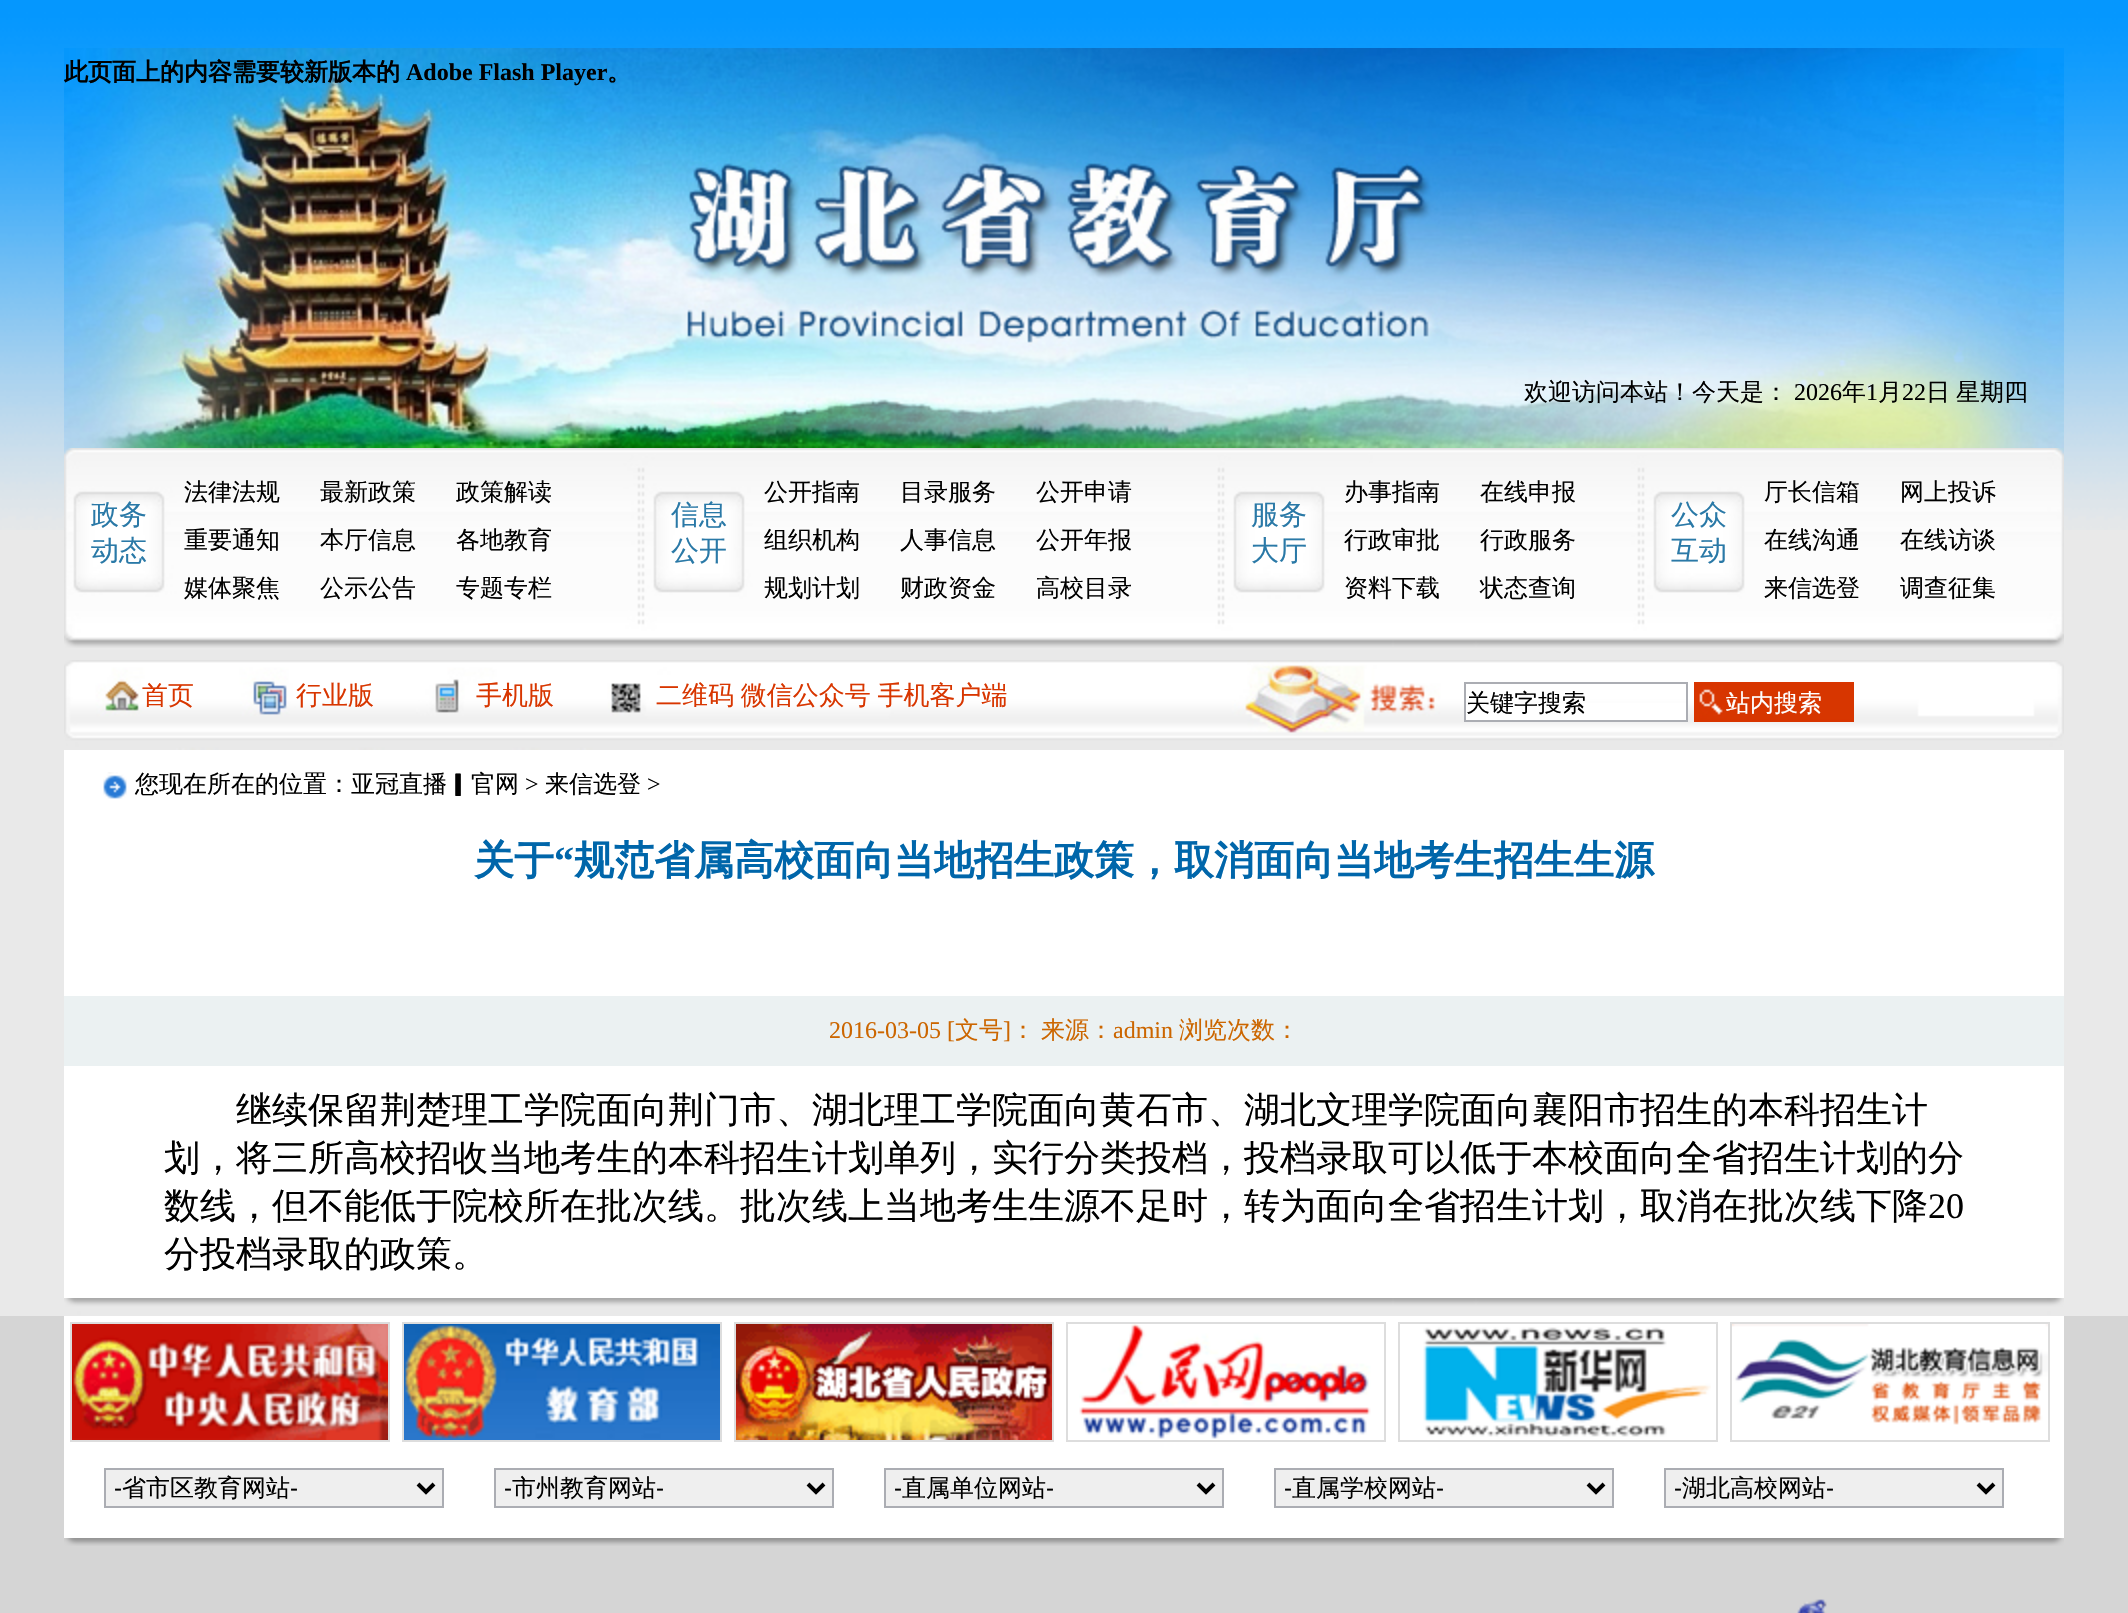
static SkFont makeFont(const char* family, int weight, float size, bool italic = false) {
  SkFontStyle style(weight, SkFontStyle::kNormal_Width,
    italic ? SkFontStyle::kItalic_Slant : SkFontStyle::kUpright_Slant);
  SkFont result(fontMgr->matchFamilyStyle(family, style), size);
  result.setSubpixel(true);
  return result;
}

static void text(SkCanvas* c, const char* s, float x, float y, const SkFont& font, SkColor color) {
  SkPaint ink(SkColor4f::FromColor(color));
  ink.setAntiAlias(true);
  c->drawString(s, x, y, font, ink);
}

static void spacedText(SkCanvas* c, const char* s, float x, float y, const SkFont& font, const SkPaint& ink, float letter, float word) {
  std::vector<SkGlyphID> glyphs(font.countText(s, strlen(s), SkTextEncoding::kUTF8));
  std::vector<float> xs(glyphs.size());
  font.textToGlyphs(s, strlen(s), SkTextEncoding::kUTF8, glyphs);
  font.getXPos(glyphs, xs, x);
  float extra = 0;
  for (size_t i = 0; i < glyphs.size(); i++) {
    xs[i] += extra;
    extra += letter + word * (glyphs[i] == font.unicharToGlyph(' '));
  }
  c->drawTextBlob(SkTextBlob::MakeFromPosHGlyphs(glyphs, xs, y, font), 0, 0, ink);
}

static void box(SkCanvas* c, float l, float t, float r, float b, SkColor color) {
  SkPaint ink(SkColor4f::FromColor(color));
  ink.setAntiAlias(true);
  c->drawRect(SkRect::MakeLTRB(l, t, r, b), ink);
}

static void picture(SkCanvas* c, const char* path, float l, float t, float r, float b) {
  auto image = SkImages::DeferredFromEncodedData(SkData::MakeFromFileName(path));
  c->drawImageRect(image, SkRect::MakeLTRB(l, t, r, b), SkSamplingOptions());
}

void draw(SkCanvas* c) {
  SkPaint paint;
  paint.setAntiAlias(true);
  c->clear(0xffe9e9e9);
  picture(c, "img_01.png", 0, 0, 2128, 530);
  picture(c, "img_02.png", 64, 48, 2064, 448);
  SkFont face1 = makeFont("WenQuanYi Zen Hei", 700, 24);
  text(c, "此页面上的内容需要较新版本的", 64, 80, face1, 0xff000000);
  SkFont face2 = makeFont("Liberation Serif", 700, 24);
  text(c, "Adobe Flash Player", 406, 80, face2, 0xff000000);
  text(c, "。", 607, 80, face1, 0xff000000);
  SkFont face3 = makeFont("WenQuanYi Zen Hei", 500, 24);
  text(c, "欢迎访问本站！今天是：", 1524, 400, face3, 0xff000000);
  SkFont face4 = makeFont("Liberation Serif", 400, 24);
  text(c, "2026", 1794, 400, face4, 0xff000000);
  text(c, "年", 1842, 400, face3, 0xff000000);
  text(c, "1", 1866, 400, face4, 0xff000000);
  text(c, "月", 1878, 400, face3, 0xff000000);
  text(c, "22", 1902, 400, face4, 0xff000000);
  text(c, "日", 1926, 400, face3, 0xff000000);
  text(c, "星期四", 1956, 400, face3, 0xff000000);
  picture(c, "img_03.png", 64, 448, 2064, 648);
  SkFont face5 = makeFont("WenQuanYi Zen Hei", 500, 28);
  text(c, "政务", 91, 524, face5, 0xff2a79a7);
  text(c, "动态", 91, 560, face5, 0xff2a79a7);
  text(c, "法律法规", 184, 500, face3, 0xff000000);
  text(c, "最新政策", 320, 500, face3, 0xff000000);
  text(c, "政策解读", 456, 500, face3, 0xff000000);
  text(c, "重要通知", 184, 548, face3, 0xff000000);
  text(c, "本厅信息", 320, 548, face3, 0xff000000);
  text(c, "各地教育", 456, 548, face3, 0xff000000);
  text(c, "媒体聚焦", 184, 596, face3, 0xff000000);
  text(c, "公示公告", 320, 596, face3, 0xff000000);
  text(c, "专题专栏", 456, 596, face3, 0xff000000);
  text(c, "信息", 671, 524, face5, 0xff2a79a7);
  text(c, "公开", 671, 560, face5, 0xff2a79a7);
  text(c, "公开指南", 764, 500, face3, 0xff000000);
  text(c, "目录服务", 900, 500, face3, 0xff000000);
  text(c, "公开申请", 1036, 500, face3, 0xff000000);
  text(c, "组织机构", 764, 548, face3, 0xff000000);
  text(c, "人事信息", 900, 548, face3, 0xff000000);
  text(c, "公开年报", 1036, 548, face3, 0xff000000);
  text(c, "规划计划", 764, 596, face3, 0xff000000);
  text(c, "财政资金", 900, 596, face3, 0xff000000);
  text(c, "高校目录", 1036, 596, face3, 0xff000000);
  text(c, "服务", 1251, 524, face5, 0xff2a79a7);
  text(c, "大厅", 1251, 560, face5, 0xff2a79a7);
  text(c, "办事指南", 1344, 500, face3, 0xff000000);
  text(c, "在线申报", 1480, 500, face3, 0xff000000);
  text(c, "行政审批", 1344, 548, face3, 0xff000000);
  text(c, "行政服务", 1480, 548, face3, 0xff000000);
  text(c, "资料下载", 1344, 596, face3, 0xff000000);
  text(c, "状态查询", 1480, 596, face3, 0xff000000);
  text(c, "公众", 1671, 524, face5, 0xff2a79a7);
  text(c, "互动", 1671, 560, face5, 0xff2a79a7);
  text(c, "厅长信箱", 1764, 500, face3, 0xff000000);
  text(c, "网上投诉", 1900, 500, face3, 0xff000000);
  text(c, "在线沟通", 1764, 548, face3, 0xff000000);
  text(c, "在线访谈", 1900, 548, face3, 0xff000000);
  text(c, "来信选登", 1764, 596, face3, 0xff000000);
  text(c, "调查征集", 1900, 596, face3, 0xff000000);
  picture(c, "img_04.png", 64, 660, 2064, 750);
  SkFont face6 = makeFont("WenQuanYi Zen Hei", 500, 26);
  text(c, "首页", 142, 704, face6, 0xffd83600);
  text(c, "行业版", 296, 704, face6, 0xffd83600);
  text(c, "手机版", 476, 704, face6, 0xffd83600);
  paint.setColor(0xffd83600);
  spacedText(c, "二维码 微信公众号 手机客户端", 656, 704, face6, paint, 0, -1);
  box(c, 1466, 703, 1686, 720, 0xffffffff);
  paint.setStyle(SkPaint::kStroke_Style);
  paint.setStrokeWidth(2);
  paint.setColor(0xffabadb3);
  c->drawRect(SkRect::MakeLTRB(1465, 683, 1687, 721), paint);
  text(c, "关键字搜索", 1466, 711, face3, 0xff000000);
  picture(c, "img_05.png", 1694, 682, 1854, 722);
  text(c, "站内搜索", 1726, 711, face3, 0xffffffff);
  box(c, 64, 750, 2064, 1298, 0xffffffff);
  picture(c, "img_06.png", 103, 772, 127, 799);
  text(c, "您现在所在的位置：亚冠直播▎官网", 135, 792, face3, 0xff000000);
  text(c, ">", 525, 792, face4, 0xff000000);
  text(c, "来信选登", 545, 792, face3, 0xff000000);
  text(c, ">", 647, 792, face4, 0xff000000);
  SkFont face7 = makeFont("WenQuanYi Zen Hei", 700, 40);
  text(c, "关于", 474, 874, face7, 0xff0066aa);
  SkFont face8 = makeFont("Liberation Serif", 700, 40);
  text(c, "“", 554, 874, face8, 0xff0066aa);
  text(c, "规范省属高校面向当地招生政策，取消面向当地考生招生生源", 574, 874, face7, 0xff0066aa);
  box(c, 64, 996, 2064, 1066, 0xffebf1f2);
  text(c, "2016-03-05 [", 829, 1038, face4, 0xffcc6600);
  text(c, "文号", 955, 1038, face3, 0xffcc6600);
  text(c, "]", 1003, 1038, face4, 0xffcc6600);
  text(c, "：", 1011, 1038, face3, 0xffcc6600);
  text(c, "来源：", 1041, 1038, face3, 0xffcc6600);
  text(c, "admin", 1113, 1038, face4, 0xffcc6600);
  text(c, "浏览次数：", 1179, 1038, face3, 0xffcc6600);
  SkFont face9 = makeFont("WenQuanYi Zen Hei", 500, 36);
  text(c, "继续保留荆楚理工学院面向荆门市、湖北理工学院面向黄石市、湖北文理学院面向襄阳市招生的本科招生计", 236, 1122, face9, 0xff000000);
  text(c, "划，将三所高校招收当地考生的本科招生计划单列，实行分类投档，投档录取可以低于本校面向全省招生计划的分", 164, 1170, face9, 0xff000000);
  text(c, "数线，但不能低于院校所在批次线。批次线上当地考生生源不足时，转为面向全省招生计划，取消在批次线下降", 164, 1218, face9, 0xff000000);
  SkFont face10 = makeFont("Liberation Serif", 400, 36);
  text(c, "20", 1928, 1218, face10, 0xff000000);
  text(c, "分投档录取的政策。", 164, 1266, face9, 0xff000000);
  picture(c, "img_07.png", 64, 1298, 2064, 1316);
  box(c, 0, 1316, 2128, 1613, 0xffd5d5d5);
  box(c, 64, 1316, 2064, 1538, 0xffffffff);
  paint.setColor(0xffdddddd);
  c->drawRect(SkRect::MakeLTRB(71, 1323, 389, 1441), paint);
  picture(c, "img_08.png", 72, 1324, 388, 1440);
  c->drawRect(SkRect::MakeLTRB(403, 1323, 721, 1441), paint);
  picture(c, "img_09.png", 404, 1324, 720, 1440);
  c->drawRect(SkRect::MakeLTRB(735, 1323, 1053, 1441), paint);
  picture(c, "img_10.png", 736, 1324, 1052, 1440);
  c->drawRect(SkRect::MakeLTRB(1067, 1323, 1385, 1441), paint);
  picture(c, "img_11.png", 1079, 1324, 1371, 1439);
  c->drawRect(SkRect::MakeLTRB(1399, 1323, 1717, 1441), paint);
  picture(c, "img_12.png", 1423, 1327, 1711, 1437);
  c->drawRect(SkRect::MakeLTRB(1731, 1323, 2049, 1441), paint);
  picture(c, "img_13.png", 1732, 1324, 2048, 1425);
  paint.setStyle(SkPaint::kFill_Style);
  paint.setColor(0xffefefef);
  c->drawRect(SkRect::MakeLTRB(105, 1469, 443, 1507), paint);
  paint.setStyle(SkPaint::kStroke_Style);
  paint.setColor(0xffabadb3);
  c->drawRect(SkRect::MakeLTRB(105, 1469, 443, 1507), paint);
  paint.setStrokeWidth(4);
  paint.setColor(0xff000000);
  c->drawPath(SkPathBuilder().moveTo(418, 1484).lineTo(426, 1492).lineTo(434, 1484).detach(), paint);
  SkFont face11 = makeFont("Liberation Sans", 400, 24);
  text(c, "-", 114, 1496, face11, 0xff000000);
  text(c, "省市区教育网站", 122, 1496, face3, 0xff000000);
  text(c, "-", 290, 1496, face11, 0xff000000);
  paint.setStyle(SkPaint::kFill_Style);
  paint.setColor(0xffefefef);
  c->drawRect(SkRect::MakeLTRB(495, 1469, 833, 1507), paint);
  paint.setStyle(SkPaint::kStroke_Style);
  paint.setStrokeWidth(2);
  paint.setColor(0xffabadb3);
  c->drawRect(SkRect::MakeLTRB(495, 1469, 833, 1507), paint);
  paint.setStrokeWidth(4);
  paint.setColor(0xff000000);
  c->drawPath(SkPathBuilder().moveTo(808, 1484).lineTo(816, 1492).lineTo(824, 1484).detach(), paint);
  text(c, "-", 504, 1496, face11, 0xff000000);
  text(c, "市州教育网站", 512, 1496, face3, 0xff000000);
  text(c, "-", 656, 1496, face11, 0xff000000);
  paint.setStyle(SkPaint::kFill_Style);
  paint.setColor(0xffefefef);
  c->drawRect(SkRect::MakeLTRB(885, 1469, 1223, 1507), paint);
  paint.setStyle(SkPaint::kStroke_Style);
  paint.setStrokeWidth(2);
  paint.setColor(0xffabadb3);
  c->drawRect(SkRect::MakeLTRB(885, 1469, 1223, 1507), paint);
  paint.setStrokeWidth(4);
  paint.setColor(0xff000000);
  c->drawPath(SkPathBuilder().moveTo(1198, 1484).lineTo(1206, 1492).lineTo(1214, 1484).detach(), paint);
  text(c, "-", 894, 1496, face11, 0xff000000);
  text(c, "直属单位网站", 902, 1496, face3, 0xff000000);
  text(c, "-", 1046, 1496, face11, 0xff000000);
  paint.setStyle(SkPaint::kFill_Style);
  paint.setColor(0xffefefef);
  c->drawRect(SkRect::MakeLTRB(1275, 1469, 1613, 1507), paint);
  paint.setStyle(SkPaint::kStroke_Style);
  paint.setStrokeWidth(2);
  paint.setColor(0xffabadb3);
  c->drawRect(SkRect::MakeLTRB(1275, 1469, 1613, 1507), paint);
  paint.setStrokeWidth(4);
  paint.setColor(0xff000000);
  c->drawPath(SkPathBuilder().moveTo(1588, 1484).lineTo(1596, 1492).lineTo(1604, 1484).detach(), paint);
  text(c, "-", 1284, 1496, face11, 0xff000000);
  text(c, "直属学校网站", 1292, 1496, face3, 0xff000000);
  text(c, "-", 1436, 1496, face11, 0xff000000);
  paint.setStyle(SkPaint::kFill_Style);
  paint.setColor(0xffefefef);
  c->drawRect(SkRect::MakeLTRB(1665, 1469, 2003, 1507), paint);
  paint.setStyle(SkPaint::kStroke_Style);
  paint.setStrokeWidth(2);
  paint.setColor(0xffabadb3);
  c->drawRect(SkRect::MakeLTRB(1665, 1469, 2003, 1507), paint);
  paint.setStrokeWidth(4);
  paint.setColor(0xff000000);
  c->drawPath(SkPathBuilder().moveTo(1978, 1484).lineTo(1986, 1492).lineTo(1994, 1484).detach(), paint);
  text(c, "-", 1674, 1496, face11, 0xff000000);
  text(c, "湖北高校网站", 1682, 1496, face3, 0xff000000);
  text(c, "-", 1826, 1496, face11, 0xff000000);
  picture(c, "img_14.png", 64, 1538, 2064, 1546);
  picture(c, "img_15.png", 1797, 1599, 1827, 1613);
}
